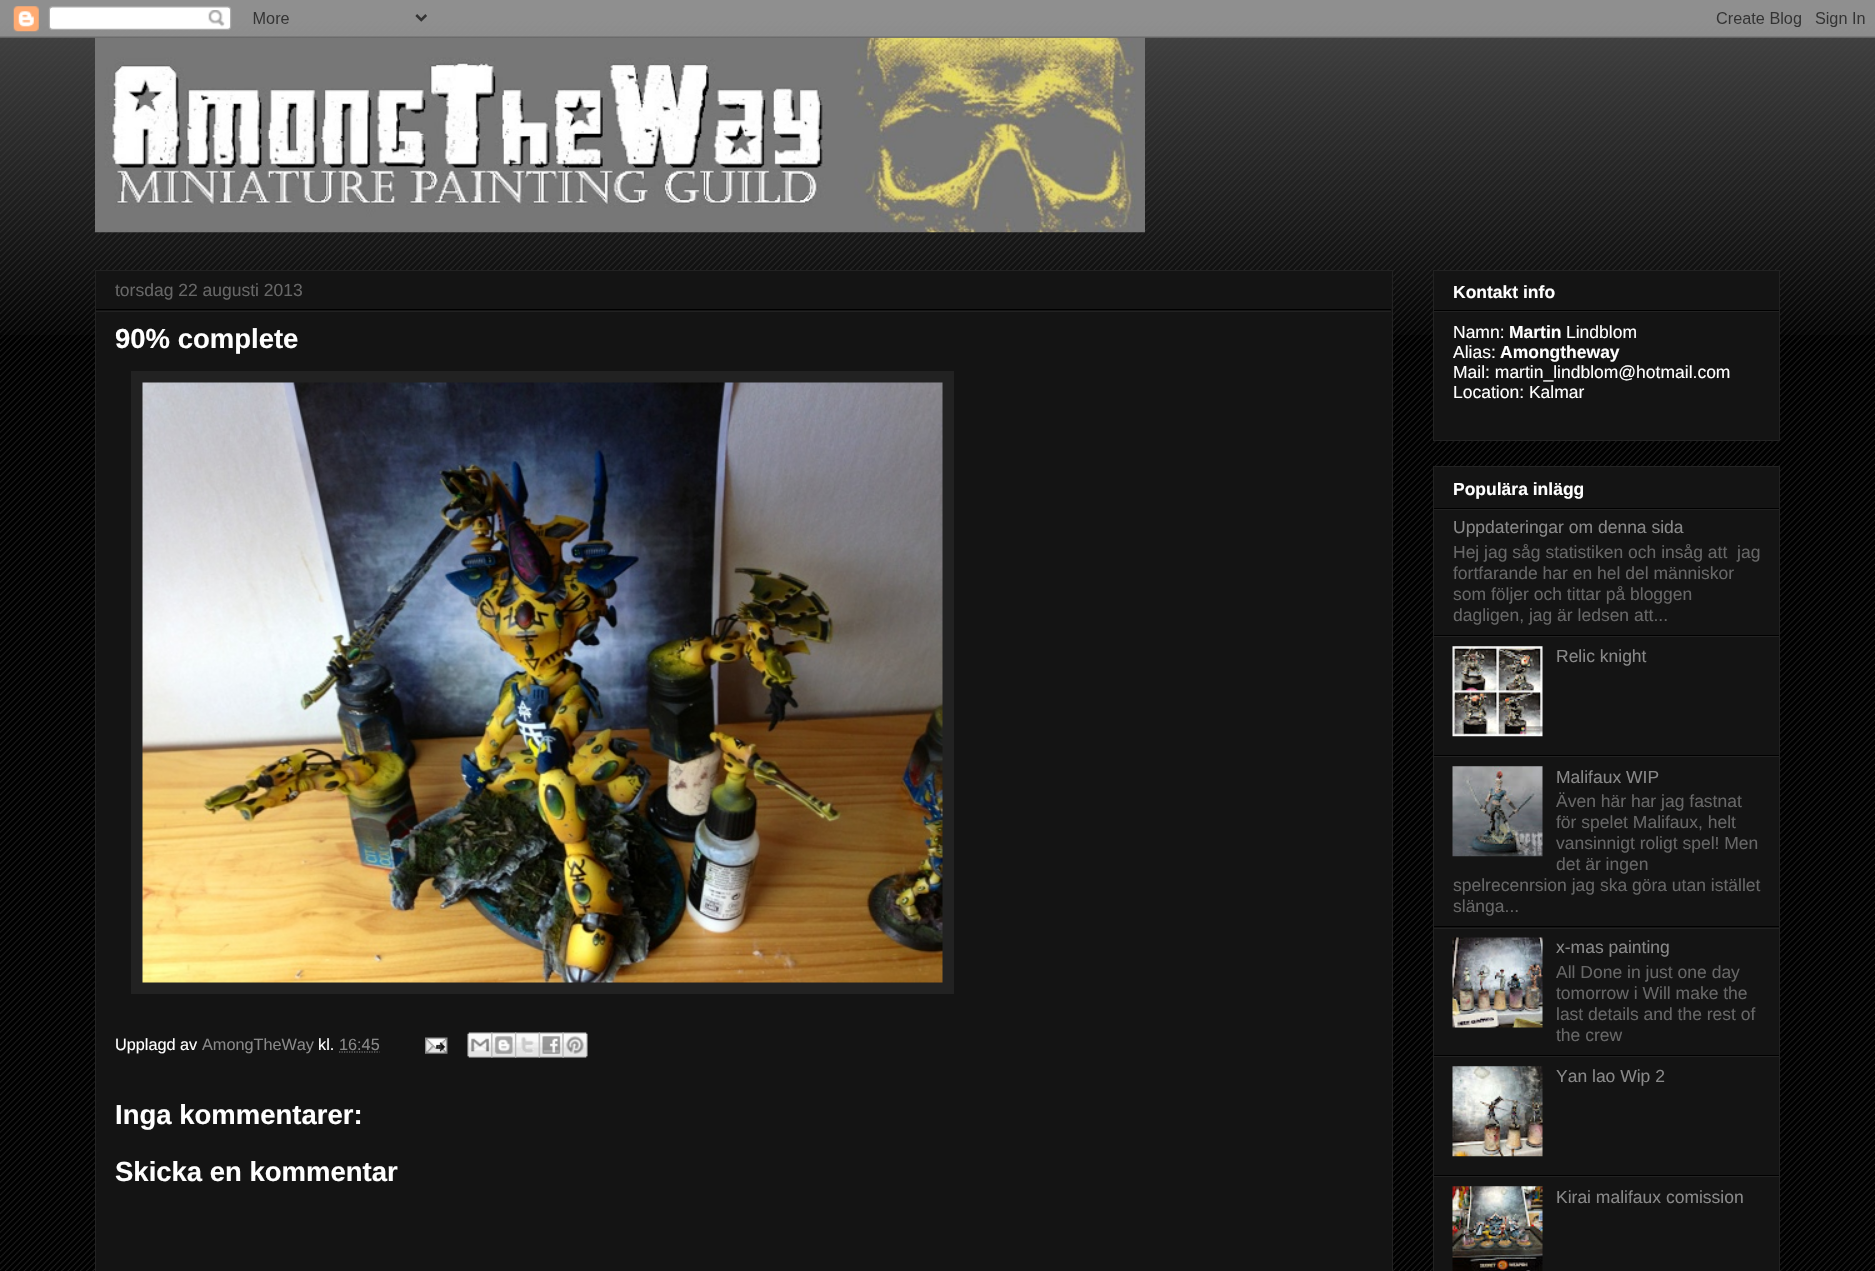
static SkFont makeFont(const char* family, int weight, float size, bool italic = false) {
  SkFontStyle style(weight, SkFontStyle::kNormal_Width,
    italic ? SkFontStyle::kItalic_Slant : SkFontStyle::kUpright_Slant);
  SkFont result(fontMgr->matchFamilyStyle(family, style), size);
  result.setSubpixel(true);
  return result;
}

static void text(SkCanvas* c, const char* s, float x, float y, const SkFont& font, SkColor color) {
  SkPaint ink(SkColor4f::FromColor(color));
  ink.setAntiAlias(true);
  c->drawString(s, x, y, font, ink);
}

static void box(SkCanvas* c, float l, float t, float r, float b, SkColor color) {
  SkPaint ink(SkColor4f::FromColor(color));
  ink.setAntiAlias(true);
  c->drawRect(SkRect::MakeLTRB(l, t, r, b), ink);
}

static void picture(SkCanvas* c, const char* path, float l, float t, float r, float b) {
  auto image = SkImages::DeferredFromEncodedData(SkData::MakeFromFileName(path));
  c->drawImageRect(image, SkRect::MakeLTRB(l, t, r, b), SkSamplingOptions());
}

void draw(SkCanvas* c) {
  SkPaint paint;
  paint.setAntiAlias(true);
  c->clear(0xff000000);
  picture(c, "img_01.png", 0, 16, 1875, 1271);
  picture(c, "img_02.png", 0, 0, 1875, 335);
  picture(c, "img_04.png", 95, 37, 1145, 233);
  picture(c, "img_03.png", 0, 0, 1875, 38);
  paint.setColor(0xff141414);
  c->drawRect(SkRect::MakeLTRB(95.5f, 270.5f, 1392.5f, 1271.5f), paint);
  paint.setStyle(SkPaint::kStroke_Style);
  paint.setStrokeWidth(1);
  paint.setColor(0xff222222);
  c->drawRect(SkRect::MakeLTRB(95.5f, 270.5f, 1392.5f, 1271.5f), paint);
  box(c, 96, 309, 1391, 310, 0xff000000);
  SkFont face1 = makeFont("Liberation Sans", 400, 17.5f);
  text(c, "torsdag 22 augusti 2013", 115, 296, face1, 0xff666666);
  box(c, 96, 311, 1391, 312, 0xff222222);
  SkFont face2 = makeFont("Liberation Sans", 700, 27.5f);
  text(c, "90% complete", 115, 348, face2, 0xffffffff);
  box(c, 131, 371, 954, 994, 0xff222222);
  picture(c, "img_05.png", 142, 382, 943, 983);
  SkFont face3 = makeFont("Liberation Sans", 400, 16.25f);
  text(c, "Upplagd av", 115, 1050, face3, 0xffffffff);
  text(c, "AmongTheWay", 202, 1050, face3, 0xff888888);
  text(c, "kl.", 318, 1050, face3, 0xffffffff);
  text(c, "16:45", 339, 1050, face3, 0xff888888);
  paint.setStrokeWidth(1.2f);
  paint.setColor(0xff888888);
  paint.setPathEffect(SkDashPathEffect::Make({{1.25f, 1.25f}}, 0));
  c->drawPath(SkPathBuilder().moveTo(339, 1052).lineTo(379.5f, 1052).detach(), paint);
  paint.setPathEffect(nullptr);
  picture(c, "img_06.png", 425, 1037, 448, 1054);
  picture(c, "img_07.png", 467, 1032, 493, 1058);
  picture(c, "img_08.png", 491, 1032, 517, 1058);
  picture(c, "img_09.png", 515, 1032, 540, 1058);
  picture(c, "img_10.png", 538, 1032, 564, 1058);
  picture(c, "img_11.png", 562, 1032, 588, 1058);
  text(c, "Inga kommentarer:", 115, 1124, face2, 0xffffffff);
  text(c, "Skicka en kommentar", 115, 1181, face2, 0xffffffff);
  paint.setStyle(SkPaint::kFill_Style);
  paint.setColor(0xff141414);
  c->drawRect(SkRect::MakeLTRB(1433.5f, 270.5f, 1779.5f, 440.5f), paint);
  paint.setStyle(SkPaint::kStroke_Style);
  paint.setStrokeWidth(1);
  paint.setColor(0xff222222);
  c->drawRect(SkRect::MakeLTRB(1433.5f, 270.5f, 1779.5f, 440.5f), paint);
  box(c, 1434, 310, 1779, 311, 0xff000000);
  SkFont face4 = makeFont("Liberation Sans", 700, 17.5f);
  text(c, "Kontakt info", 1453, 298, face4, 0xffffffff);
  box(c, 1434, 311, 1779, 312, 0xff222222);
  text(c, "Namn:", 1453, 338, face1, 0xffffffff);
  text(c, "Martin", 1509, 338, face4, 0xffffffff);
  text(c, "Lindblom", 1566, 338, face1, 0xffffffff);
  text(c, "Alias:", 1453, 358, face1, 0xffffffff);
  text(c, "Amongtheway", 1500, 358, face4, 0xffffffff);
  text(c, "Mail: martin_lindblom@hotmail.com", 1453, 378, face1, 0xffffffff);
  text(c, "Location: Kalmar", 1453, 398, face1, 0xffffffff);
  paint.setStyle(SkPaint::kFill_Style);
  paint.setColor(0xff141414);
  c->drawRect(SkRect::MakeLTRB(1433.5f, 466.5f, 1779.5f, 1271.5f), paint);
  paint.setStyle(SkPaint::kStroke_Style);
  paint.setColor(0xff222222);
  c->drawRect(SkRect::MakeLTRB(1433.5f, 466.5f, 1779.5f, 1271.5f), paint);
  box(c, 1434, 508, 1779, 509, 0xff000000);
  text(c, "Populära inlägg", 1453, 495, face4, 0xffffffff);
  box(c, 1434, 509, 1779, 510, 0xff222222);
  box(c, 1434, 635, 1779, 636, 0xff000000);
  text(c, "Uppdateringar om denna sida", 1453, 533, face1, 0xff888888);
  text(c, "Hej jag såg statistiken och insåg att  jag", 1453, 558, face1, 0xff666666);
  text(c, "fortfarande har en hel del människor", 1453, 579, face1, 0xff666666);
  text(c, "som följer och tittar på bloggen", 1453, 600, face1, 0xff666666);
  text(c, "dagligen, jag är ledsen att...", 1453, 621, face1, 0xff666666);
  box(c, 1434, 636, 1779, 637, 0xff222222);
  box(c, 1434, 755, 1779, 756, 0xff000000);
  picture(c, "img_12.png", 1452, 646, 1543, 737);
  text(c, "Relic knight", 1556, 662, face1, 0xff888888);
  box(c, 1434, 756, 1779, 757, 0xff222222);
  box(c, 1434, 926, 1779, 927, 0xff000000);
  picture(c, "img_13.png", 1452, 766, 1543, 857);
  text(c, "Malifaux WIP", 1556, 783, face1, 0xff888888);
  text(c, "Även här har jag fastnat", 1556, 807, face1, 0xff666666);
  text(c, "för spelet Malifaux, helt", 1556, 828, face1, 0xff666666);
  text(c, "vansinnigt roligt spel! Men", 1556, 849, face1, 0xff666666);
  text(c, "det är ingen", 1556, 870, face1, 0xff666666);
  text(c, "spelrecenrsion jag ska göra utan istället", 1453, 891, face1, 0xff666666);
  text(c, "slänga...", 1453, 912, face1, 0xff666666);
  box(c, 1434, 928, 1779, 929, 0xff222222);
  box(c, 1434, 1055, 1779, 1056, 0xff000000);
  picture(c, "img_14.png", 1452, 937, 1543, 1028);
  text(c, "x-mas painting", 1556, 953, face1, 0xff888888);
  text(c, "All Done in just one day", 1556, 978, face1, 0xff666666);
  text(c, "tomorrow i Will make the", 1556, 999, face1, 0xff666666);
  text(c, "last details and the rest of", 1556, 1020, face1, 0xff666666);
  text(c, "the crew", 1556, 1041, face1, 0xff666666);
  box(c, 1434, 1056, 1779, 1057, 0xff222222);
  box(c, 1434, 1175, 1779, 1176, 0xff000000);
  picture(c, "img_15.png", 1452, 1066, 1543, 1157);
  text(c, "Yan lao Wip 2", 1556, 1082, face1, 0xff888888);
  box(c, 1434, 1176, 1779, 1177, 0xff222222);
  picture(c, "img_16.png", 1452, 1186, 1543, 1271);
  text(c, "Kirai malifaux comission", 1556, 1203, face1, 0xff888888);
}
